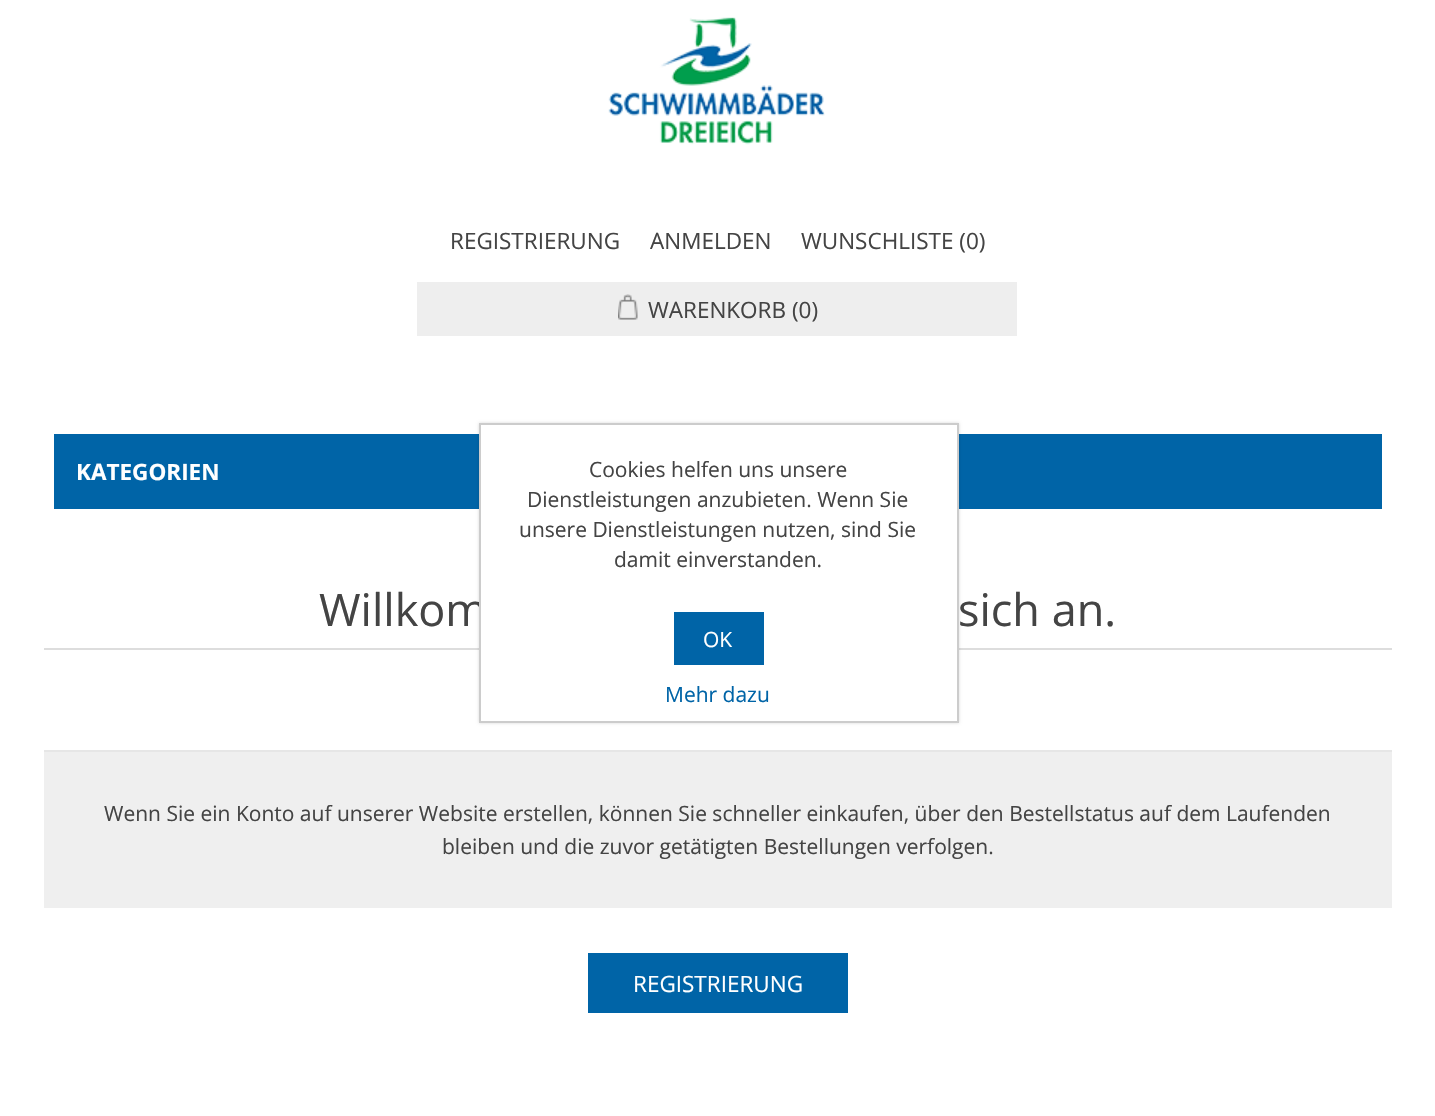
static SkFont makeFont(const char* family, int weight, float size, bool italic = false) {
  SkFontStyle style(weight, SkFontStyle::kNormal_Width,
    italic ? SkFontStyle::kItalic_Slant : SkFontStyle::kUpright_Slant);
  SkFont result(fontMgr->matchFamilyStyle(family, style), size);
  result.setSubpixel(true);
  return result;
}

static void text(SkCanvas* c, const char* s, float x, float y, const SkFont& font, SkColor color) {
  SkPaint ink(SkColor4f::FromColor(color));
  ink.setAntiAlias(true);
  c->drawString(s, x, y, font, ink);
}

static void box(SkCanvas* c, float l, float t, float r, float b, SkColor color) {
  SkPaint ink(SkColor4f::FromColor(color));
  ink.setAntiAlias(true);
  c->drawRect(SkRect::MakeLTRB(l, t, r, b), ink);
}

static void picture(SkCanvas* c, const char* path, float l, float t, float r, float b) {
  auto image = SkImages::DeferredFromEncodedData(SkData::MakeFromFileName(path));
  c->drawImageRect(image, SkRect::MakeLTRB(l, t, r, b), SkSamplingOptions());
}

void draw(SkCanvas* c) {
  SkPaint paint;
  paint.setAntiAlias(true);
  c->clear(0xffffffff);
  picture(c, "img_01.png", 608, 17, 825, 145);
  SkFont face1 = makeFont("Open Sans", 400, 22.5f);
  text(c, "REGISTRIERUNG", 450, 249, face1, 0xff444444);
  text(c, "ANMELDEN", 650, 249, face1, 0xff444444);
  text(c, "WUNSCHLISTE (0)", 801, 249, face1, 0xff444444);
  box(c, 417, 282, 1017, 336, 0xffeeeeee);
  picture(c, "img_02.png", 618, 294, 638, 320);
  text(c, "WARENKORB (0)", 648, 318, face1, 0xff444444);
  box(c, 54, 434, 1382, 509, 0xff0064a7);
  SkFont face2 = makeFont("Open Sans", 700, 22.5f);
  text(c, "KATEGORIEN", 76, 480, face2, 0xffffffff);
  box(c, 44, 648, 1392, 650, 0xffdddddd);
  SkFont face3 = makeFont("Open Sans", 400, 45);
  text(c, "Willkom", 319, 626, face3, 0xff444444);
  text(c, "sich an.", 958, 626, face3, 0xff444444);
  box(c, 44, 752, 1392, 908, 0xffefefef);
  box(c, 44, 750, 1392, 752, 0xffe6e6e6);
  SkFont face4 = makeFont("Open Sans", 400, 21);
  text(c, "Wenn Sie ein Konto auf unserer Website erstellen, können Sie schneller einkaufen, über den Bestellstatus auf dem Laufenden", 104, 821, face4, 0xff444444);
  text(c, "bleiben und die zuvor getätigten Bestellungen verfolgen.", 442, 854, face4, 0xff444444);
  box(c, 588, 953, 848, 1013, 0xff0064a7);
  text(c, "REGISTRIERUNG", 633, 992, face1, 0xffffffff);
  paint.setColor(0x26000000);
  paint.setMaskFilter(SkMaskFilter::MakeBlur(kNormal_SkBlurStyle, 1.5f));
  c->drawRect(SkRect::MakeLTRB(479, 423, 959, 723), paint);
  paint.setMaskFilter(nullptr);
  paint.setColor(0xffffffff);
  c->drawRect(SkRect::MakeLTRB(480, 424, 958, 722), paint);
  paint.setStyle(SkPaint::kStroke_Style);
  paint.setStrokeWidth(2);
  paint.setColor(0xffcccccc);
  c->drawRect(SkRect::MakeLTRB(480, 424, 958, 722), paint);
  text(c, "Cookies helfen uns unsere", 589, 477, face4, 0xff444444);
  text(c, "Dienstleistungen anzubieten. Wenn Sie", 527, 507, face4, 0xff444444);
  text(c, "unsere Dienstleistungen nutzen, sind Sie", 519, 537, face4, 0xff444444);
  text(c, "damit einverstanden.", 614, 567, face4, 0xff444444);
  box(c, 674, 612, 764, 665, 0xff0064a7);
  text(c, "OK", 703, 647, face4, 0xffffffff);
  text(c, "Mehr dazu", 665, 702, face4, 0xff0064a7);
}
